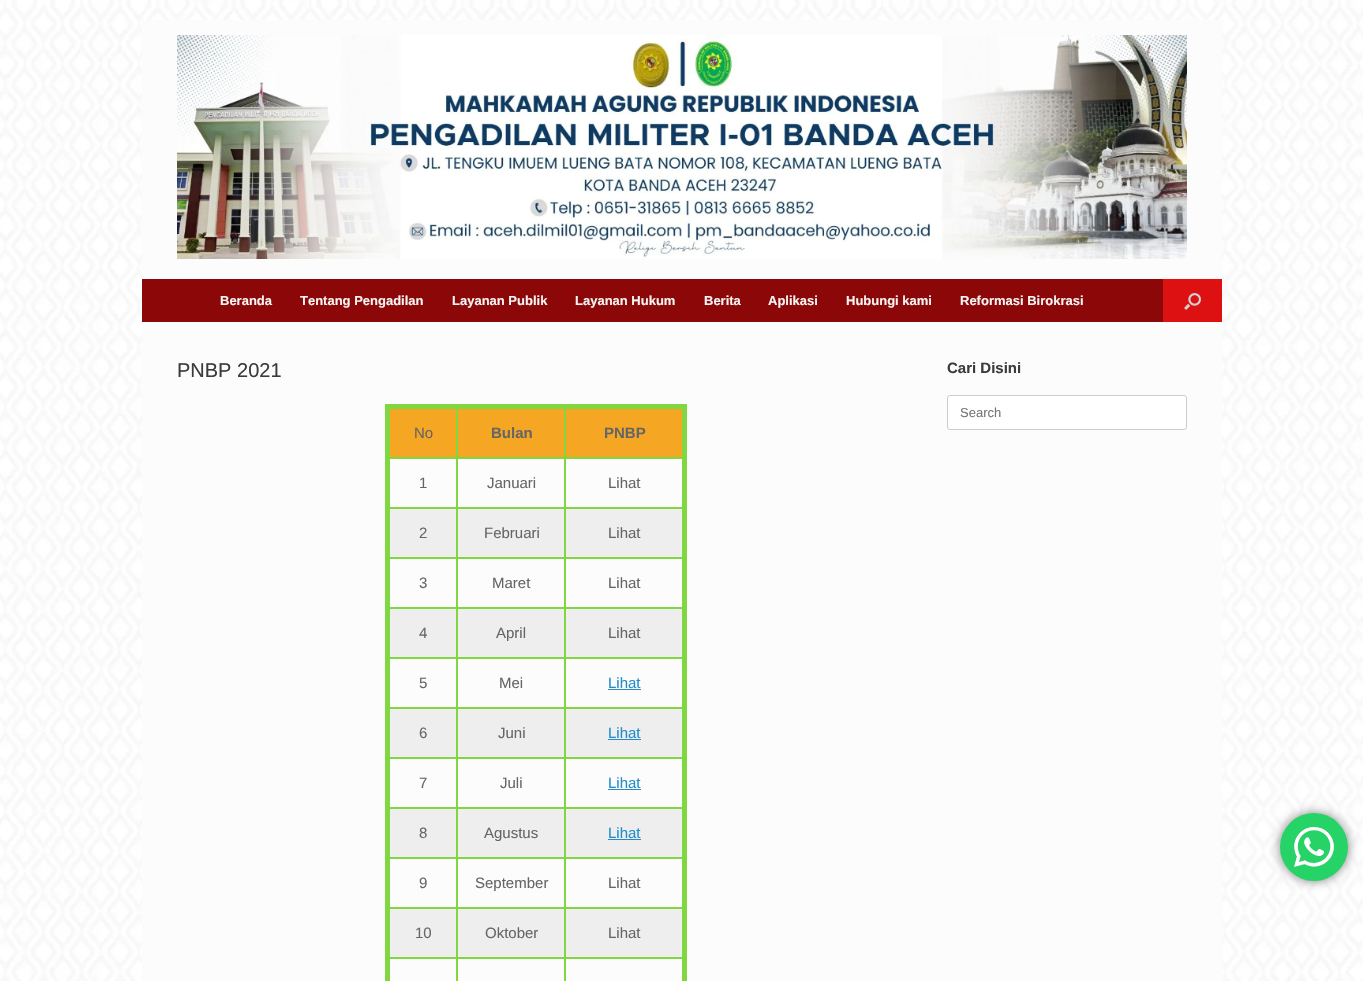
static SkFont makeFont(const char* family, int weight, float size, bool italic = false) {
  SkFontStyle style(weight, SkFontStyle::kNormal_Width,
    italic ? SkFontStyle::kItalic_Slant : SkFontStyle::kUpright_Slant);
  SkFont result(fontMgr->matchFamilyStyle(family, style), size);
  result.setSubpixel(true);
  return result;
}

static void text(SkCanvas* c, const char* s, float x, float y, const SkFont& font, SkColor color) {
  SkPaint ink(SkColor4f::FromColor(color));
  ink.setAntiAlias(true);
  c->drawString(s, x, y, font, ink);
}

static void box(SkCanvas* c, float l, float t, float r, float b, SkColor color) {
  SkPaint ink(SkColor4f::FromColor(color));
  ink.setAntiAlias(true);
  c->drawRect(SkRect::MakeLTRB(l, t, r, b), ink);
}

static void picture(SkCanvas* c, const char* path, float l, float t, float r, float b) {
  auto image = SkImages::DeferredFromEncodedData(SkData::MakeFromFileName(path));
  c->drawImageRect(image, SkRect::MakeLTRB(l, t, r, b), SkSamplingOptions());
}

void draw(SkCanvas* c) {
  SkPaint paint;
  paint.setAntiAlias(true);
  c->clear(0xffffffff);
  picture(c, "img_01.png", 0, 0, 1363, 981);
  box(c, 142, 20, 1222, 279, 0xfffcfcfc);
  picture(c, "img_02.png", 177, 35, 1187, 259);
  box(c, 142, 279, 1163, 322, 0xff8c0707);
  SkFont face1 = makeFont("Liberation Sans", 700, 13);
  text(c, "Beranda", 220, 305, face1, 0xfff4f4f4);
  text(c, "Tentang Pengadilan", 300, 305, face1, 0xfff4f4f4);
  text(c, "Layanan Publik", 452, 305, face1, 0xfff4f4f4);
  text(c, "Layanan Hukum", 575, 305, face1, 0xfff4f4f4);
  text(c, "Berita", 704, 305, face1, 0xfff4f4f4);
  text(c, "Aplikasi", 768, 305, face1, 0xfff4f4f4);
  text(c, "Hubungi kami", 846, 305, face1, 0xfff4f4f4);
  text(c, "Reformasi Birokrasi", 960, 305, face1, 0xfff4f4f4);
  box(c, 1163, 279, 1222, 322, 0xffdd1111);
  picture(c, "img_03.png", 1184, 293, 1201, 310);
  box(c, 142, 322, 1222, 981, 0xfffcfcfc);
  SkFont face2 = makeFont("Liberation Sans", 400, 20);
  text(c, "PNBP 2021", 177, 377, face2, 0xff3b3b3b);
  box(c, 390, 409, 682, 457, 0xfff5a623);
  box(c, 564, 457, 686, 459, 0xff81d742);
  box(c, 564, 507, 686, 509, 0xff81d742);
  box(c, 390, 509, 682, 557, 0xffeeeeee);
  box(c, 564, 557, 686, 559, 0xff81d742);
  box(c, 564, 607, 686, 609, 0xff81d742);
  box(c, 390, 609, 682, 657, 0xffeeeeee);
  box(c, 564, 657, 686, 659, 0xff81d742);
  box(c, 564, 707, 686, 709, 0xff81d742);
  box(c, 390, 709, 682, 757, 0xffeeeeee);
  box(c, 564, 757, 686, 759, 0xff81d742);
  box(c, 564, 807, 686, 809, 0xff81d742);
  box(c, 390, 809, 682, 857, 0xffeeeeee);
  box(c, 564, 857, 686, 859, 0xff81d742);
  box(c, 564, 907, 686, 909, 0xff81d742);
  box(c, 390, 909, 682, 957, 0xffeeeeee);
  box(c, 564, 957, 686, 959, 0xff81d742);
  box(c, 564, 957, 566, 981, 0xff81d742);
  box(c, 456, 957, 566, 959, 0xff81d742);
  box(c, 564, 907, 566, 959, 0xff81d742);
  box(c, 456, 907, 566, 909, 0xff81d742);
  box(c, 564, 857, 566, 909, 0xff81d742);
  box(c, 456, 857, 566, 859, 0xff81d742);
  box(c, 564, 807, 566, 859, 0xff81d742);
  box(c, 456, 807, 566, 809, 0xff81d742);
  box(c, 564, 757, 566, 809, 0xff81d742);
  box(c, 456, 757, 566, 759, 0xff81d742);
  box(c, 564, 707, 566, 759, 0xff81d742);
  box(c, 456, 707, 566, 709, 0xff81d742);
  box(c, 564, 657, 566, 709, 0xff81d742);
  box(c, 456, 657, 566, 659, 0xff81d742);
  box(c, 564, 607, 566, 659, 0xff81d742);
  box(c, 456, 607, 566, 609, 0xff81d742);
  box(c, 564, 557, 566, 609, 0xff81d742);
  box(c, 456, 557, 566, 559, 0xff81d742);
  box(c, 564, 507, 566, 559, 0xff81d742);
  box(c, 456, 507, 566, 509, 0xff81d742);
  box(c, 564, 457, 566, 509, 0xff81d742);
  box(c, 456, 457, 566, 459, 0xff81d742);
  box(c, 456, 957, 458, 981, 0xff81d742);
  box(c, 387, 957, 458, 959, 0xff81d742);
  box(c, 456, 907, 458, 959, 0xff81d742);
  box(c, 387, 907, 458, 909, 0xff81d742);
  box(c, 456, 857, 458, 909, 0xff81d742);
  box(c, 387, 857, 458, 859, 0xff81d742);
  box(c, 456, 807, 458, 859, 0xff81d742);
  box(c, 387, 807, 458, 809, 0xff81d742);
  box(c, 456, 757, 458, 809, 0xff81d742);
  box(c, 387, 757, 458, 759, 0xff81d742);
  box(c, 456, 707, 458, 759, 0xff81d742);
  box(c, 387, 707, 458, 709, 0xff81d742);
  box(c, 456, 657, 458, 709, 0xff81d742);
  box(c, 387, 657, 458, 659, 0xff81d742);
  box(c, 456, 607, 458, 659, 0xff81d742);
  box(c, 387, 607, 458, 609, 0xff81d742);
  box(c, 456, 557, 458, 609, 0xff81d742);
  box(c, 387, 557, 458, 559, 0xff81d742);
  box(c, 456, 507, 458, 559, 0xff81d742);
  box(c, 387, 507, 458, 509, 0xff81d742);
  box(c, 456, 457, 458, 509, 0xff81d742);
  box(c, 387, 457, 458, 459, 0xff81d742);
  box(c, 456, 406, 458, 459, 0xff81d742);
  box(c, 564, 406, 566, 459, 0xff81d742);
  box(c, 385, 404, 687, 409, 0xff81d742);
  box(c, 682, 404, 687, 981, 0xff81d742);
  box(c, 385, 404, 390, 981, 0xff81d742);
  SkFont face3 = makeFont("Liberation Sans", 400, 15);
  text(c, "No", 414, 438, face3, 0xff666666);
  SkFont face4 = makeFont("Liberation Sans", 700, 15);
  text(c, "Bulan", 491, 438, face4, 0xff666666);
  text(c, "PNBP", 604, 438, face4, 0xff666666);
  text(c, "1", 419, 488, face3, 0xff666666);
  text(c, "Januari", 487, 488, face3, 0xff666666);
  text(c, "Lihat", 608, 488, face3, 0xff666666);
  text(c, "2", 419, 538, face3, 0xff666666);
  text(c, "Februari", 484, 538, face3, 0xff666666);
  text(c, "Lihat", 608, 538, face3, 0xff666666);
  text(c, "3", 419, 588, face3, 0xff666666);
  text(c, "Maret", 492, 588, face3, 0xff666666);
  text(c, "Lihat", 608, 588, face3, 0xff666666);
  text(c, "4", 419, 638, face3, 0xff666666);
  text(c, "April", 496, 638, face3, 0xff666666);
  text(c, "Lihat", 608, 638, face3, 0xff666666);
  text(c, "5", 419, 688, face3, 0xff666666);
  text(c, "Mei", 499, 688, face3, 0xff666666);
  text(c, "Lihat", 608, 688, face3, 0xff248cc8);
  box(c, 608, 689, 641, 690, 0xff248cc8);
  text(c, "6", 419, 738, face3, 0xff666666);
  text(c, "Juni", 498, 738, face3, 0xff666666);
  text(c, "Lihat", 608, 738, face3, 0xff248cc8);
  box(c, 608, 739, 641, 740, 0xff248cc8);
  text(c, "7", 419, 788, face3, 0xff666666);
  text(c, "Juli", 500, 788, face3, 0xff666666);
  text(c, "Lihat", 608, 788, face3, 0xff248cc8);
  box(c, 608, 789, 641, 790, 0xff248cc8);
  text(c, "8", 419, 838, face3, 0xff666666);
  text(c, "Agustus", 484, 838, face3, 0xff666666);
  text(c, "Lihat", 608, 838, face3, 0xff248cc8);
  box(c, 608, 839, 641, 840, 0xff248cc8);
  text(c, "9", 419, 888, face3, 0xff666666);
  text(c, "September", 475, 888, face3, 0xff666666);
  text(c, "Lihat", 608, 888, face3, 0xff666666);
  text(c, "10", 415, 938, face3, 0xff666666);
  text(c, "Oktober", 485, 938, face3, 0xff666666);
  text(c, "Lihat", 608, 938, face3, 0xff666666);
  text(c, "Cari Disini", 947, 373, face4, 0xff3b3b3b);
  paint.setColor(0xffffffff);
  c->drawRoundRect(SkRect::MakeLTRB(947.5f, 395.5f, 1186.5f, 429.5f), 2.5f, 2.5f, paint);
  paint.setStyle(SkPaint::kStroke_Style);
  paint.setStrokeWidth(1);
  paint.setColor(0xffcccccc);
  c->drawRoundRect(SkRect::MakeLTRB(947.5f, 395.5f, 1186.5f, 429.5f), 2.5f, 2.5f, paint);
  SkFont face5 = makeFont("Liberation Sans", 400, 13);
  text(c, "Search", 960, 417, face5, 0xff757575);
  paint.setStyle(SkPaint::kFill_Style);
  paint.setColor(0x80000000);
  paint.setMaskFilter(SkMaskFilter::MakeBlur(kNormal_SkBlurStyle, 5.5f));
  c->drawRoundRect(SkRect::MakeLTRB(1280, 813, 1348, 881), 34, 34, paint);
  paint.setMaskFilter(nullptr);
  paint.setColor(0xff25d366);
  c->drawCircle(1314, 847, 34, paint);
  picture(c, "img_04.png", 1294, 827, 1334, 867);
}
